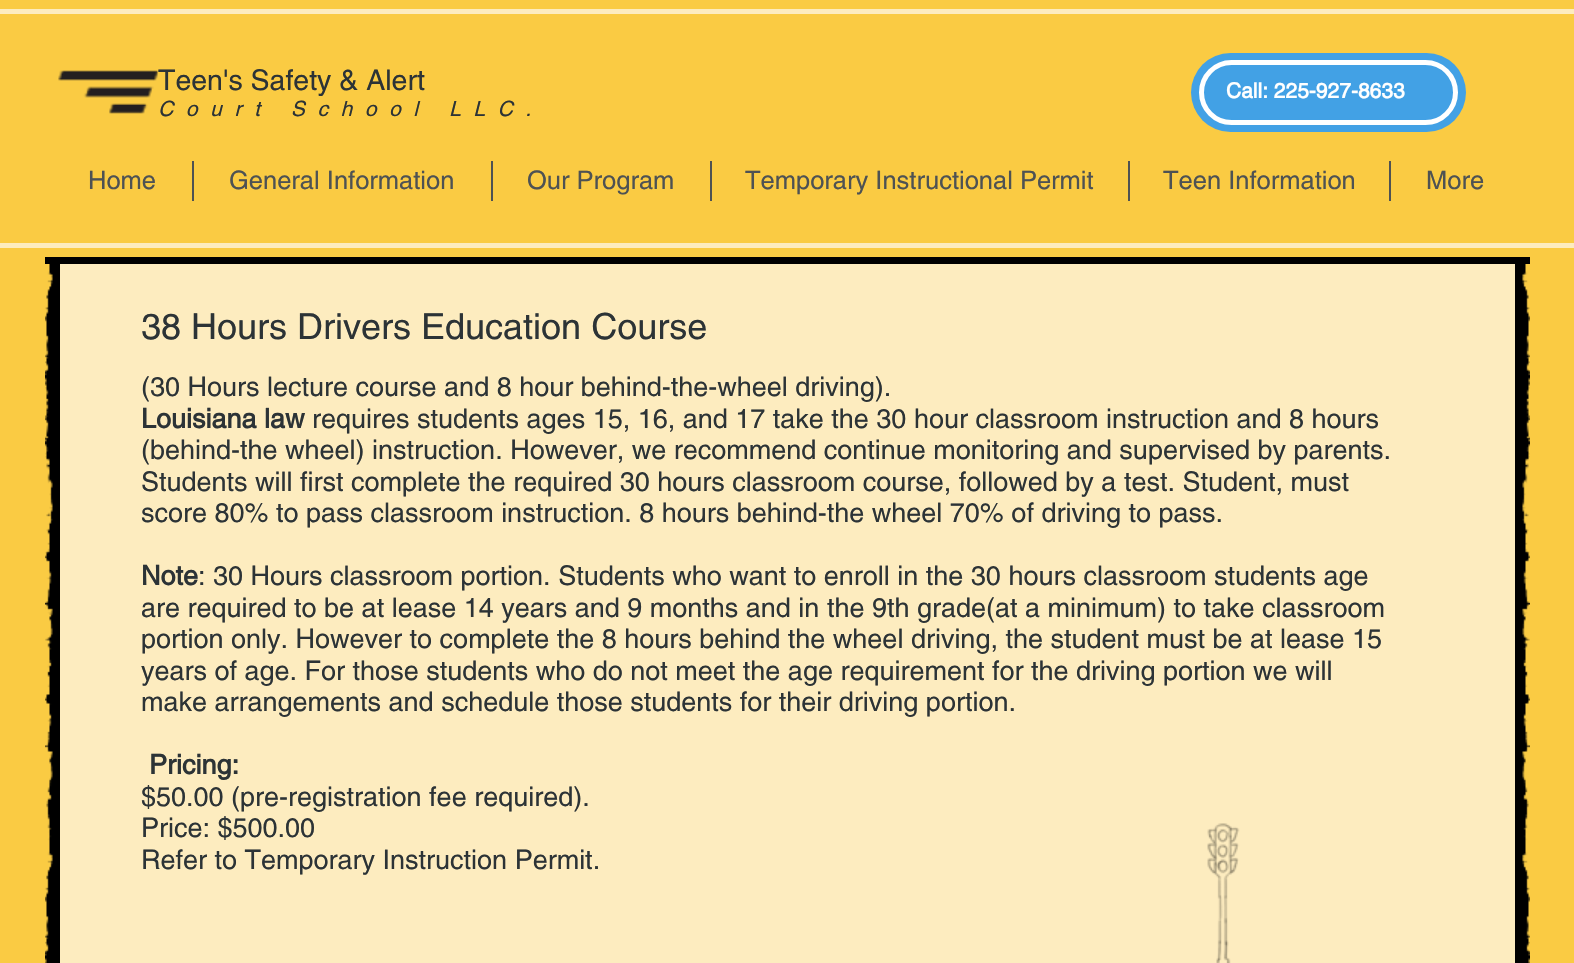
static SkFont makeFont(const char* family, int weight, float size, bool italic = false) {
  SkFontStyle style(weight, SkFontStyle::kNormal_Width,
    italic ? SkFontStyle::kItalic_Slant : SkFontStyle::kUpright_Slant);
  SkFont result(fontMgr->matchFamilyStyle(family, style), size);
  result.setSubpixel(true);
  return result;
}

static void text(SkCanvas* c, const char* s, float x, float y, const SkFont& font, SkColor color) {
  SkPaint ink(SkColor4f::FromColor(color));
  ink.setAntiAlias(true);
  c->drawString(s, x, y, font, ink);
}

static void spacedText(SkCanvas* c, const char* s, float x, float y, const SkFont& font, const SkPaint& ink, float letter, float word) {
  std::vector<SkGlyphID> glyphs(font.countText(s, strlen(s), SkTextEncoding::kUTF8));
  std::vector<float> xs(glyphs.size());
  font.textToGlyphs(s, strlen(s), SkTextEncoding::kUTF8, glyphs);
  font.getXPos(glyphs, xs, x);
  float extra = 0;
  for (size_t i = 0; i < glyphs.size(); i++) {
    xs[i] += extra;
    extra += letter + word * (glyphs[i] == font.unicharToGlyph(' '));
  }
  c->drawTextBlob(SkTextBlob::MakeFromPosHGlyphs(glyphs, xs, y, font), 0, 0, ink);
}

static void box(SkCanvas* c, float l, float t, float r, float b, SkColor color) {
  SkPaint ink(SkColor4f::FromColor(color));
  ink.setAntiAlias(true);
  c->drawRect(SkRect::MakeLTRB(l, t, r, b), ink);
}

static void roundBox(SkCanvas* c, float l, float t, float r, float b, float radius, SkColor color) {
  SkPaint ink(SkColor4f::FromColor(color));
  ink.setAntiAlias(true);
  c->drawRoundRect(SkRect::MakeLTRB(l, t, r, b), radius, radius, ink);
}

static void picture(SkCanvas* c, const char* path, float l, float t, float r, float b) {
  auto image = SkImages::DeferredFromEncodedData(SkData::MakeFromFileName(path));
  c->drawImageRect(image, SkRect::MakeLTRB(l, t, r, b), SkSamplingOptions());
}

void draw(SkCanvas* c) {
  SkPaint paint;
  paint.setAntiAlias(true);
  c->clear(0xfffacb43);
  box(c, 0, 9, 1574, 14, 0xfffdecbf);
  box(c, 0, 243, 1574, 248, 0xfffdecbf);
  picture(c, "img_01.png", 58, 70, 158, 114);
  SkFont face1 = makeFont("helvetica", 400, 28.5f);
  text(c, "Teen's Safety & Alert", 158, 90, face1, 0xff2c3336);
  SkFont face2 = makeFont("helvetica", 400, 21, true);
  paint.setColor(0xff2c3336);
  spacedText(c, "Court School LLC.", 158, 116, face2, paint, 12.6f, 0);
  roundBox(c, 1191, 53, 1466, 132, 39.5f, 0xff42a1e5);
  paint.setStyle(SkPaint::kStroke_Style);
  paint.setStrokeWidth(5);
  paint.setColor(0xffffffff);
  c->drawRoundRect(SkRect::MakeLTRB(1201.5f, 62.5f, 1455.5f, 122.5f), 30, 30, paint);
  SkFont face3 = makeFont("helvetica", 700, 21);
  text(c, "Call: 225-927-8633", 1226, 98, face3, 0xffffffff);
  SkFont face4 = makeFont("helvetica", 400, 25.5f);
  text(c, "Home", 88, 189, face4, 0xff4e5253);
  box(c, 192, 161, 194, 201, 0xff4e5253);
  text(c, "General Information", 229, 189, face4, 0xff4e5253);
  box(c, 491, 161, 493, 201, 0xff4e5253);
  text(c, "Our Program", 527, 189, face4, 0xff4e5253);
  box(c, 710, 161, 712, 201, 0xff4e5253);
  text(c, "Temporary Instructional Permit", 745, 189, face4, 0xff4e5253);
  box(c, 1128, 161, 1130, 201, 0xff4e5253);
  text(c, "Teen Information", 1163, 189, face4, 0xff4e5253);
  box(c, 1389, 161, 1391, 201, 0xff4e5253);
  text(c, "More", 1426, 189, face4, 0xff4e5253);
  box(c, 60, 264, 1515, 963, 0xfffdecbf);
  picture(c, "img_02.png", 45, 257, 1530, 264);
  picture(c, "img_03.png", 45, 264, 60, 963);
  picture(c, "img_04.png", 1515, 264, 1530, 963);
  SkFont face5 = makeFont("helvetica", 400, 36);
  text(c, "38 Hours Drivers Education Course", 141, 339, face5, 0xff2c3336);
  SkFont face6 = makeFont("helvetica", 400, 27);
  text(c, "(30 Hours lecture course and 8 hour behind-the-wheel driving).", 141, 396, face6, 0xff2c3336);
  SkFont face7 = makeFont("helvetica", 700, 27);
  text(c, "Louisiana law", 141, 428, face7, 0xff2c3336);
  text(c, "requires students ages 15, 16, and 17 take the 30 hour classroom instruction and 8 hours", 312, 428, face6, 0xff2c3336);
  text(c, "(behind-the wheel) instruction. However, we recommend continue monitoring and supervised by parents.", 141, 459, face6, 0xff2c3336);
  text(c, "Students will first complete the required 30 hours classroom course, followed by a test. Student, must", 141, 491, face6, 0xff2c3336);
  text(c, "score 80% to pass classroom instruction. 8 hours behind-the wheel 70% of driving to pass.", 141, 522, face6, 0xff2c3336);
  text(c, "Note", 141, 585, face7, 0xff2c3336);
  text(c, ": 30 Hours classroom portion. Students who want to enroll in the 30 hours classroom students age", 198, 585, face6, 0xff2c3336);
  text(c, "are required to be at lease 14 years and 9 months and in the 9th grade(at a minimum) to take classroom", 141, 617, face6, 0xff2c3336);
  text(c, "portion only. However to complete the 8 hours behind the wheel driving, the student must be at lease 15", 141, 648, face6, 0xff2c3336);
  text(c, "years of age. For those students who do not meet the age requirement for the driving portion we will", 141, 680, face6, 0xff2c3336);
  text(c, "make arrangements and schedule those students for their driving portion.", 141, 711, face6, 0xff2c3336);
  text(c, "Pricing:", 149, 774, face7, 0xff2c3336);
  text(c, "$50.00 (pre-registration fee required).", 141, 806, face6, 0xff2c3336);
  text(c, "Price: $500.00", 141, 837, face6, 0xff2c3336);
  text(c, "Refer to Temporary Instruction Permit.", 141, 869, face6, 0xff2c3336);
  picture(c, "img_05.png", 1207, 823, 1240, 963);
}
